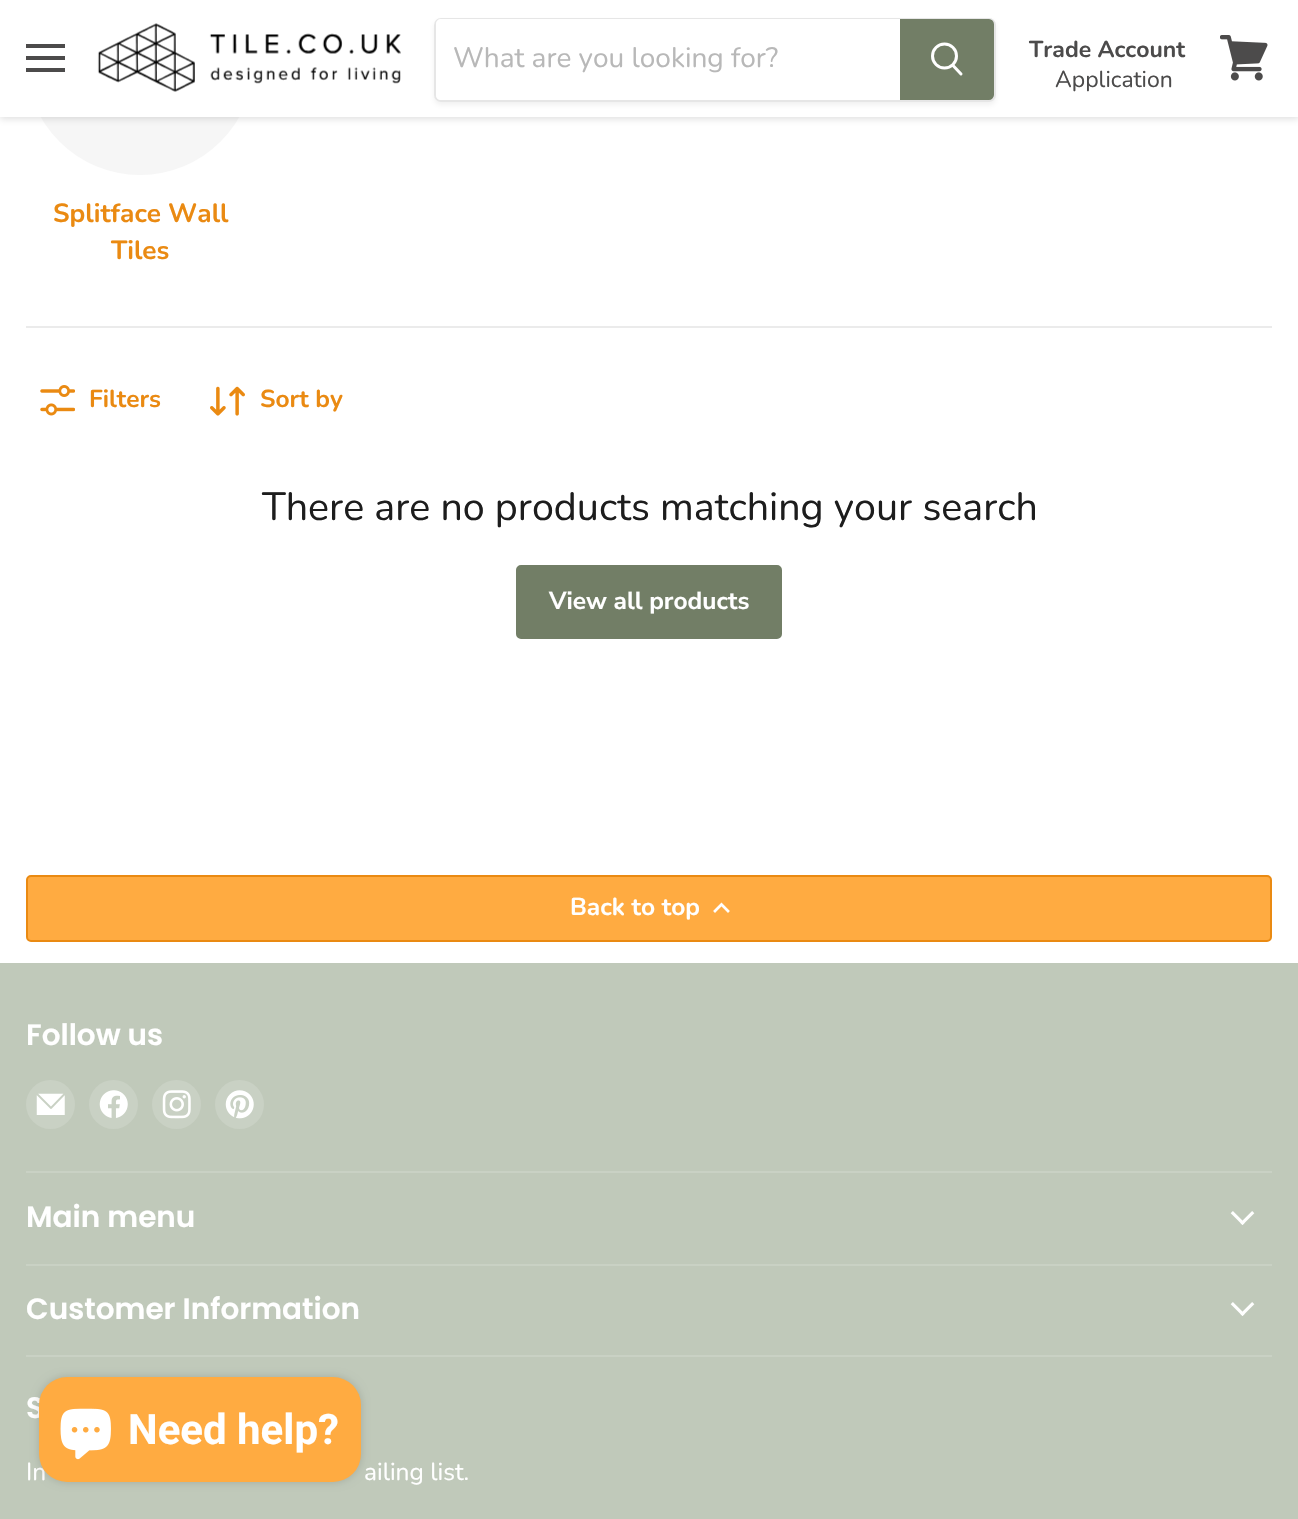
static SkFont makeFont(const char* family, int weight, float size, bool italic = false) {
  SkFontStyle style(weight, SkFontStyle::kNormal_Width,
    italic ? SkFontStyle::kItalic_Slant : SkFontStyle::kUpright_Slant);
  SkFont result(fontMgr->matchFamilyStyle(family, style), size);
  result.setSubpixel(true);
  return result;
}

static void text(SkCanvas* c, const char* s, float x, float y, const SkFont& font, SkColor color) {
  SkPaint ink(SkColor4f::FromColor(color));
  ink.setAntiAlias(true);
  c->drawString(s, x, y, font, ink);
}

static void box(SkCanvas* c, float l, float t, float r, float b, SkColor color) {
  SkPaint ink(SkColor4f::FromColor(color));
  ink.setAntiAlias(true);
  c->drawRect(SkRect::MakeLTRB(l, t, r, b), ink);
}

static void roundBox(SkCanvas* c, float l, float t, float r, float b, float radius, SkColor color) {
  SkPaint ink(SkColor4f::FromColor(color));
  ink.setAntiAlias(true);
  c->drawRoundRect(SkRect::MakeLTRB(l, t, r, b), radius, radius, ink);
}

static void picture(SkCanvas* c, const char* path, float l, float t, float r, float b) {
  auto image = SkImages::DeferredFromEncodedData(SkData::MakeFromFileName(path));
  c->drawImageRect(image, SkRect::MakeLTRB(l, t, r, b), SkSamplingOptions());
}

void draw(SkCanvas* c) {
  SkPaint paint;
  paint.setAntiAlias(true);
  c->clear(0xffffffff);
  roundBox(c, 26, -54, 254, 175, 114, 0xfff6f6f6);
  paint.setColor(0x40808080);
  paint.setMaskFilter(SkMaskFilter::MakeBlur(kNormal_SkBlurStyle, 3.5f));
  c->drawRect(SkRect::MakeLTRB(0, 2, 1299, 119), paint);
  paint.setMaskFilter(nullptr);
  box(c, 0, 0, 1298, 117, 0xffffffff);
  box(c, 26, 44, 65, 48, 0xff4c4b4b);
  box(c, 26, 56, 65, 60, 0xff4c4b4b);
  box(c, 26, 68, 65, 72, 0xff4c4b4b);
  picture(c, "img_01.png", 97, 23, 401, 92);
  c->save();
  c->clipPath(SkPathBuilder(SkPathFillType::kEvenOdd).moveTo(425, 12).lineTo(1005, 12).lineTo(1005, 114).lineTo(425, 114).close().moveTo(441, 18).lineTo(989, 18).cubicTo(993, 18, 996, 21, 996, 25).lineTo(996, 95).cubicTo(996, 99, 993, 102, 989, 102).lineTo(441, 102).cubicTo(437, 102, 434, 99, 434, 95).lineTo(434, 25).cubicTo(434, 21, 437, 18, 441, 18).close().detach(), true);
  paint.setColor(0x1c808080);
  paint.setMaskFilter(SkMaskFilter::MakeBlur(kNormal_SkBlurStyle, 2.5f));
  c->drawRoundRect(SkRect::MakeLTRB(434, 21, 996, 105), 7, 7, paint);
  paint.setMaskFilter(nullptr);
  c->restore();
  paint.setStyle(SkPaint::kStroke_Style);
  paint.setStrokeWidth(2);
  paint.setColor(0x33808080);
  c->drawRoundRect(SkRect::MakeLTRB(435, 19, 995, 101), 6, 6, paint);
  paint.setStyle(SkPaint::kFill_Style);
  paint.setColor(0xffffffff);
  c->drawPath(SkPathBuilder().moveTo(441, 19).lineTo(900, 19).lineTo(900, 100).lineTo(441, 100).cubicTo(438, 100, 436, 98, 436, 95).lineTo(436, 24).cubicTo(436, 21, 438, 19, 441, 19).close().detach(), paint);
  SkFont face1 = makeFont("Nunito", 400, 28);
  text(c, "What are you looking for?", 453, 67, face1, 0xffb8b8b8);
  paint.setColor(0xff727e66);
  c->drawPath(SkPathBuilder().moveTo(901, 20).lineTo(989, 20).cubicTo(991, 20, 993, 22, 993, 24).lineTo(993, 95).cubicTo(993, 97, 991, 99, 989, 99).lineTo(901, 99).close().detach(), paint);
  paint.setStyle(SkPaint::kStroke_Style);
  c->drawPath(SkPathBuilder().moveTo(901, 20).lineTo(989, 20).cubicTo(991, 20, 993, 22, 993, 24).lineTo(993, 95).cubicTo(993, 97, 991, 99, 989, 99).lineTo(901, 99).close().detach(), paint);
  paint.setStrokeWidth(3);
  paint.setStrokeCap(SkPaint::kRound_Cap);
  paint.setColor(0xffffffff);
  c->drawPath(SkPathBuilder().moveTo(961, 74).lineTo(953, 65.5f).detach(), paint);
  paint.setStrokeCap(SkPaint::kButt_Cap);
  c->drawCircle(944.5f, 56, 12, paint);
  SkFont face2 = makeFont("Nunito", 700, 23);
  text(c, "Trade Account", 1029, 57, face2, 0xff4c4b4b);
  SkFont face3 = makeFont("Nunito", 400, 23);
  text(c, "Application", 1055, 87, face3, 0xff4c4b4b);
  picture(c, "img_02.png", 1220, 35, 1268, 81);
  SkFont face4 = makeFont("Nunito", 700, 26.25f);
  text(c, "Splitface Wall", 53, 222, face4, 0xffea8a12);
  text(c, "Tiles", 111, 259, face4, 0xffea8a12);
  box(c, 26, 326, 1272, 328, 0xffebebeb);
  picture(c, "img_03.png", 40, 385, 75, 416);
  SkFont face5 = makeFont("Nunito", 700, 24.5f);
  text(c, "Filters", 89, 407, face5, 0xffea8a12);
  picture(c, "img_04.png", 210, 386, 245, 416);
  text(c, "Sort by", 260, 407, face5, 0xffea8a12);
  SkFont face6 = makeFont("Nunito", 400, 39.4f);
  text(c, "There are no products matching your search", 262, 520, face6, 0xff1d1d1d);
  paint.setStyle(SkPaint::kFill_Style);
  paint.setColor(0xff727e66);
  c->drawRoundRect(SkRect::MakeLTRB(517, 566, 781, 638), 4, 4, paint);
  paint.setStyle(SkPaint::kStroke_Style);
  paint.setStrokeWidth(2);
  c->drawRoundRect(SkRect::MakeLTRB(517, 566, 781, 638), 4, 4, paint);
  SkFont face7 = makeFont("Nunito Sans", 700, 24.5f);
  text(c, "View all products", 549, 609, face7, 0xffffffff);
  paint.setStyle(SkPaint::kFill_Style);
  paint.setColor(0xffffab41);
  c->drawRoundRect(SkRect::MakeLTRB(27, 876, 1271, 941), 4, 4, paint);
  paint.setStyle(SkPaint::kStroke_Style);
  paint.setColor(0xffea8a12);
  c->drawRoundRect(SkRect::MakeLTRB(27, 876, 1271, 941), 4, 4, paint);
  text(c, "Back to top", 570, 915, face5, 0xffffffff);
  paint.setStrokeWidth(2.7f);
  paint.setStrokeCap(SkPaint::kSquare_Cap);
  paint.setColor(0xffffffff);
  c->drawPath(SkPathBuilder().moveTo(721.5f, 904.5f).lineTo(715, 911).moveTo(721.5f, 904.5f).lineTo(728, 911).detach(), paint);
  box(c, 0, 963, 1298, 1519, 0xffc0c9ba);
  box(c, 26, 1171, 1272, 1173, 0xffc9d1c4);
  SkFont face8 = makeFont("Poppins", 600, 29.5f);
  text(c, "Follow us", 26, 1045, face8, 0xffffffff);
  paint.setStyle(SkPaint::kFill_Style);
  paint.setColor(0xffc9d1c4);
  c->drawCircle(50.5f, 1104.5f, 24.5f, paint);
  picture(c, "img_05.png", 36, 1093, 65, 1115);
  c->drawCircle(113.5f, 1104.5f, 24.5f, paint);
  picture(c, "img_06.png", 99, 1090, 128, 1118);
  c->drawCircle(176.5f, 1104.5f, 24.5f, paint);
  picture(c, "img_07.png", 162, 1090, 191, 1119);
  c->drawCircle(239.5f, 1104.5f, 24.5f, paint);
  picture(c, "img_08.png", 225, 1090, 254, 1119);
  box(c, 26, 1264, 1272, 1266, 0xffc9d1c4);
  text(c, "Main menu", 26, 1227, face8, 0xffffffff);
  picture(c, "img_09.png", 1230, 1211, 1255, 1225);
  box(c, 26, 1355, 1272, 1357, 0xffc9d1c4);
  text(c, "Customer Information", 26, 1319, face8, 0xffffffff);
  picture(c, "img_09.png", 1230, 1302, 1255, 1316);
  text(c, "S", 26, 1418, face8, 0xffffffff);
  SkFont face9 = makeFont("Nunito", 400, 24.5f);
  text(c, "In", 26, 1480, face9, 0xffffffff);
  text(c, "ailing list.", 364, 1480, face9, 0xffffffff);
  paint.setColor(0x26000000);
  paint.setMaskFilter(SkMaskFilter::MakeBlur(kNormal_SkBlurStyle, 4.5f));
  c->drawRoundRect(SkRect::MakeLTRB(39, 1377, 361, 1482), 28, 28, paint);
  paint.setMaskFilter(nullptr);
  roundBox(c, 39, 1377, 361, 1482, 28, 0xffffab41);
  picture(c, "img_10.png", 60, 1408, 111, 1460);
  SkFont face10 = makeFont("Roboto", 700, 42);
  text(c, "Need help?", 128, 1444, face10, 0xffffffff);
}
